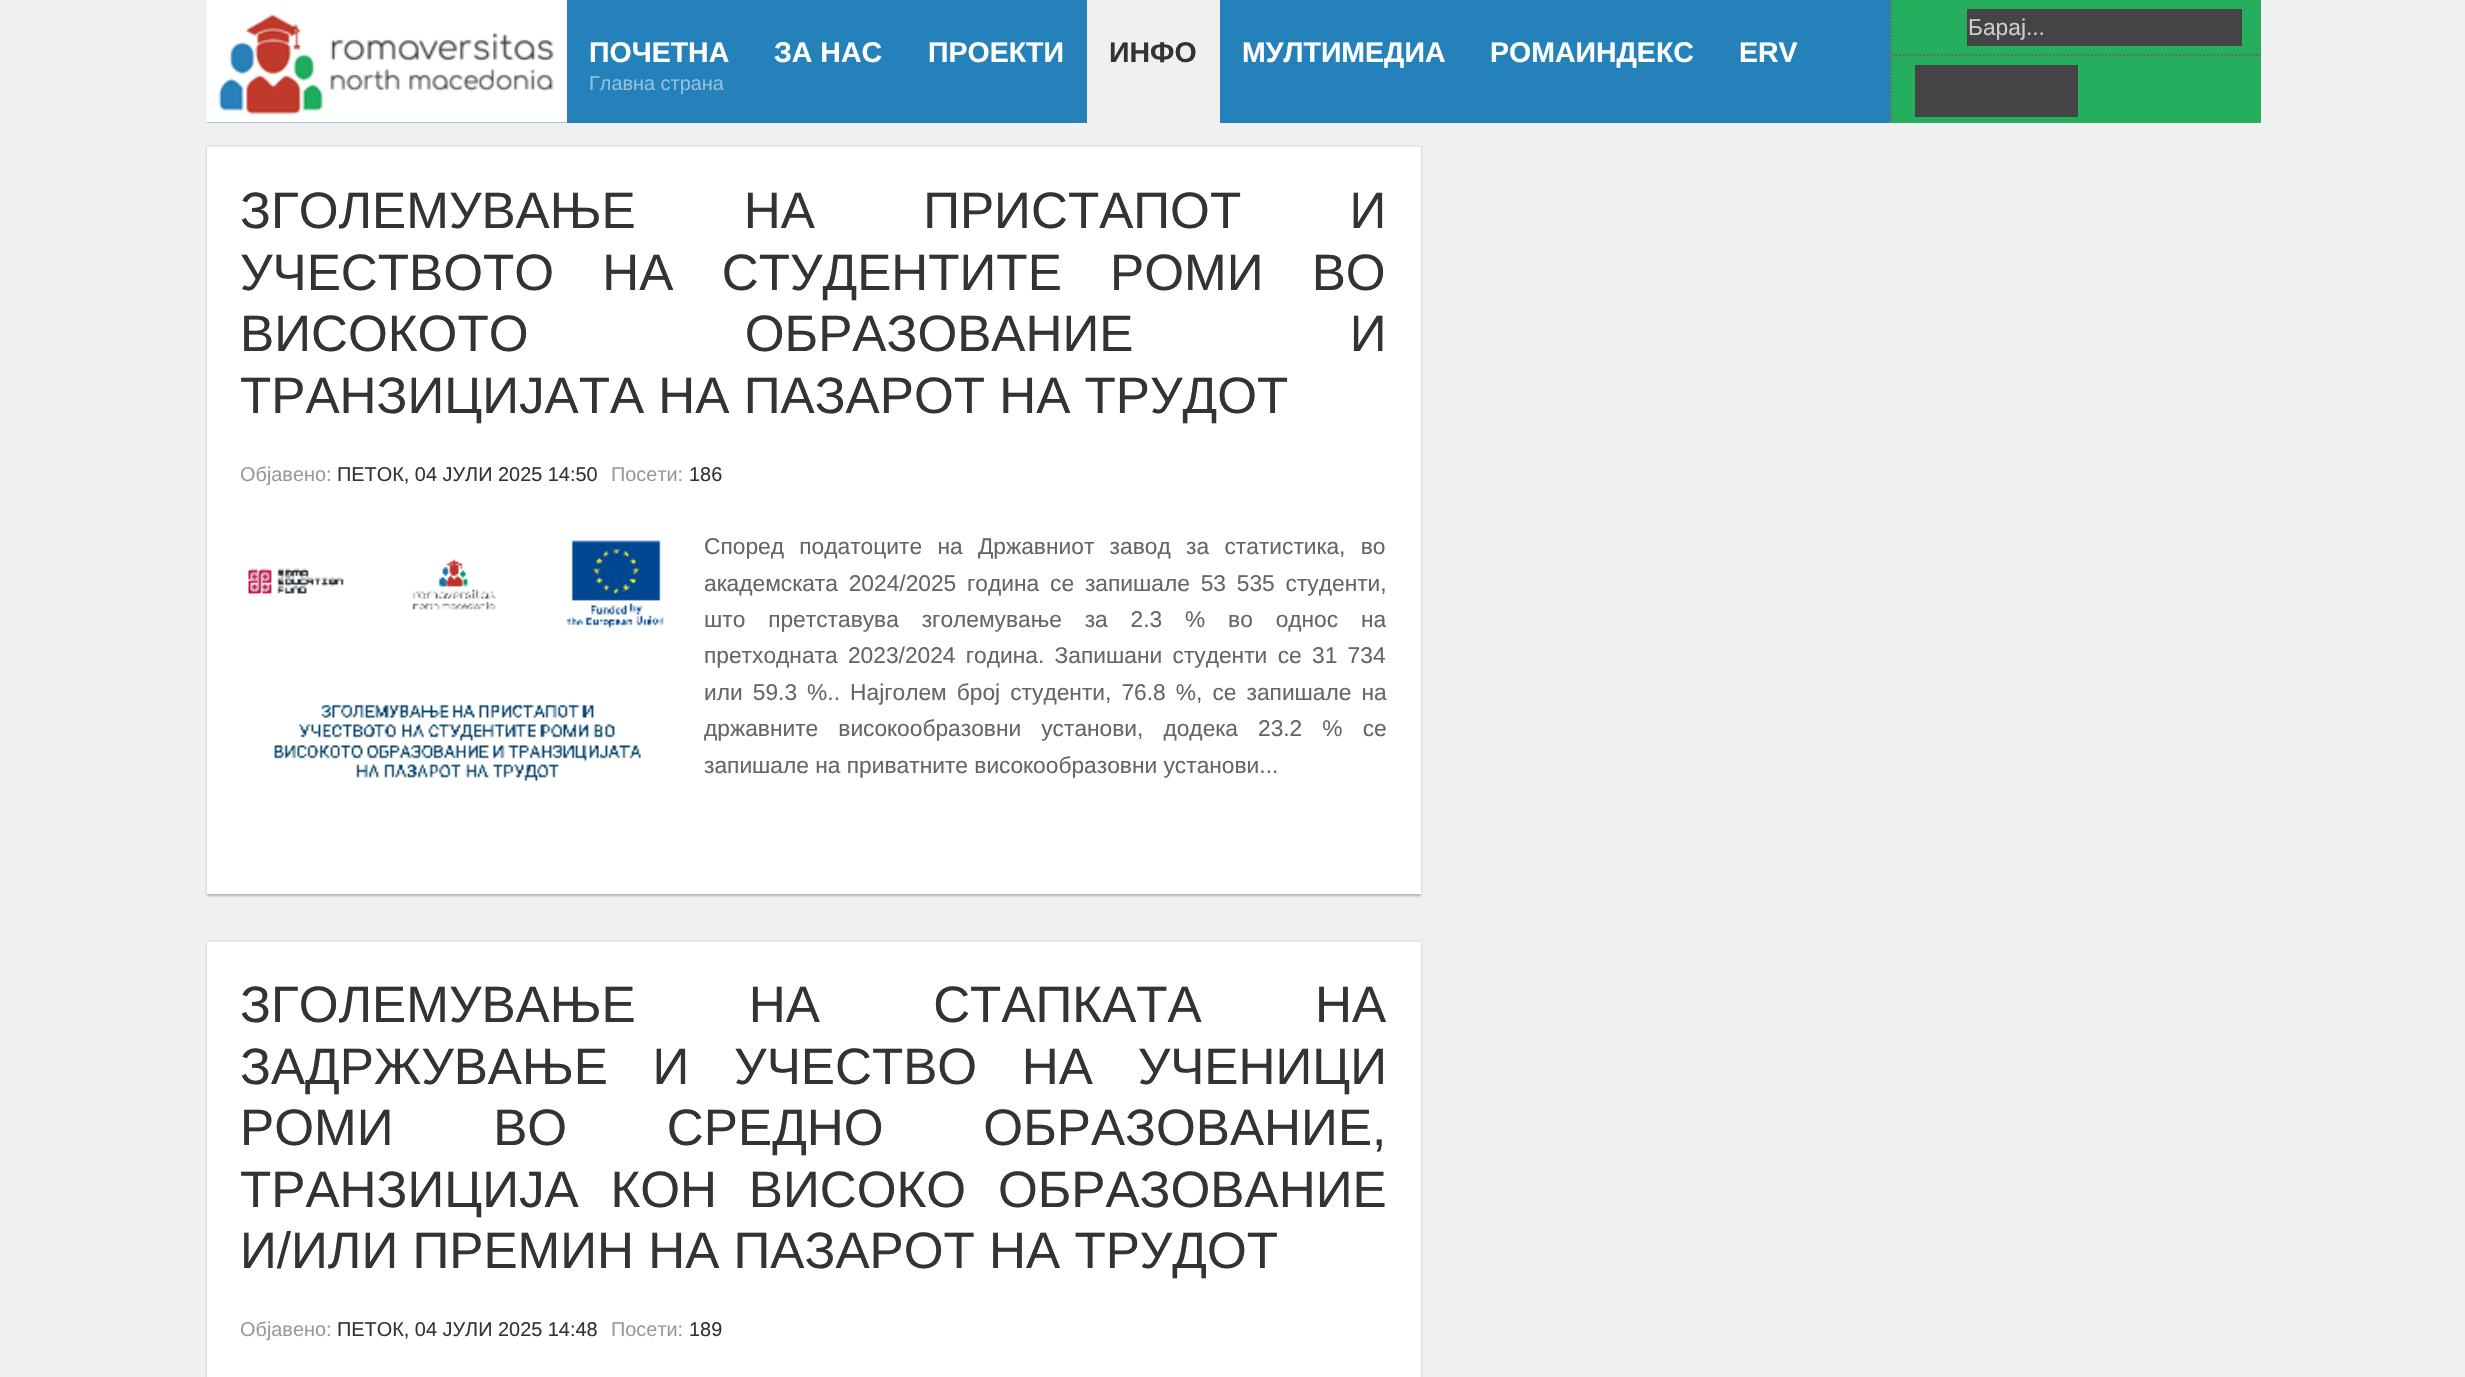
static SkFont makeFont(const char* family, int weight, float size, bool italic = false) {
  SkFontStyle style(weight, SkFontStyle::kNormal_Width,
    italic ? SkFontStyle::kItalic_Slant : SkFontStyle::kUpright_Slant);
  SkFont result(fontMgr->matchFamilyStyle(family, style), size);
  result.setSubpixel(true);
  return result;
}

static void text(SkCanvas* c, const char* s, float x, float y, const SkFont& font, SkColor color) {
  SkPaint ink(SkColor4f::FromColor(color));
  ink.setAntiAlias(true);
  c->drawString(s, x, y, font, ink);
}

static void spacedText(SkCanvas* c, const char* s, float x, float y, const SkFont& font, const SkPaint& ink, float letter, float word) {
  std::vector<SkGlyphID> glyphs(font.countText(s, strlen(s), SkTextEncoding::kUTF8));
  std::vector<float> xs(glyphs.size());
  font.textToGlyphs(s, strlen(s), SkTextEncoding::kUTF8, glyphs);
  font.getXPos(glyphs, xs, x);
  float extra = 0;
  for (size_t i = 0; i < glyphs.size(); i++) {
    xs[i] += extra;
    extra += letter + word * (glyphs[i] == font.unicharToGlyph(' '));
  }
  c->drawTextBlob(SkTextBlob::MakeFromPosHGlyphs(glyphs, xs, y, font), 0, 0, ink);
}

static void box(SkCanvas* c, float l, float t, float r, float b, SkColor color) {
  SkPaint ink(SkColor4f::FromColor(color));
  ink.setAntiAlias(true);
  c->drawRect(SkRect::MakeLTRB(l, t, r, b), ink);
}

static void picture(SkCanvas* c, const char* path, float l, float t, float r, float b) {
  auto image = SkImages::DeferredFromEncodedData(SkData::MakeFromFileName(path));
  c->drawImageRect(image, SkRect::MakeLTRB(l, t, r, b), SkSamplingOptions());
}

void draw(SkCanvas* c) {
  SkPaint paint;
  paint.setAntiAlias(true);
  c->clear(0xfff0f0f0);
  box(c, 567, 0, 1890, 123, 0xff2481ba);
  box(c, 207, 122, 567, 123, 0xff4488bb);
  picture(c, "img_01.png", 206, 0, 567, 123);
  box(c, 1890, 0, 2261, 123, 0xff25ae5e);
  paint.setStyle(SkPaint::kStroke_Style);
  paint.setStrokeWidth(1.8f);
  paint.setColor(0xff666666);
  paint.setPathEffect(SkDashPathEffect::Make({{1.75f, 1.75f}}, 0));
  c->drawPath(SkPathBuilder().moveTo(1891, 0).lineTo(1891, 122.5f).detach(), paint);
  paint.setPathEffect(nullptr);
  paint.setPathEffect(SkDashPathEffect::Make({{1.75f, 1.75f}}, 0));
  c->drawPath(SkPathBuilder().moveTo(1892, 55).lineTo(2261, 55).detach(), paint);
  paint.setPathEffect(nullptr);
  box(c, 1967, 9, 2242, 46, 0xff444444);
  SkFont face1 = makeFont("Liberation Sans", 400, 22.75f);
  text(c, "Барај...", 1968, 35, face1, 0xffcccccc);
  box(c, 1915, 65, 1969, 117, 0xff444444);
  box(c, 1969, 65, 2023, 117, 0xff444444);
  box(c, 2023, 65, 2078, 117, 0xff444444);
  SkFont face2 = makeFont("Liberation Sans", 700, 28.5f);
  text(c, "ПОЧЕТНА", 589, 62, face2, 0xffffffff);
  SkFont face3 = makeFont("Liberation Sans", 400, 19.9f);
  text(c, "Главна страна", 589, 90, face3, 0xff92c0dd);
  text(c, "ЗА НАС", 774, 62, face2, 0xffffffff);
  text(c, "ПРОЕКТИ", 928, 62, face2, 0xffffffff);
  box(c, 1087, 0, 1220, 123, 0xfff0f0f0);
  text(c, "ИНФО", 1109, 62, face2, 0xff333333);
  text(c, "МУЛТИМЕДИА", 1242, 62, face2, 0xffffffff);
  text(c, "РОМАИНДЕКС", 1490, 62, face2, 0xffffffff);
  text(c, "ERV", 1739, 62, face2, 0xffffffff);
  paint.setStyle(SkPaint::kFill_Style);
  paint.setColor(0x40000000);
  paint.setMaskFilter(SkMaskFilter::MakeBlur(kNormal_SkBlurStyle, 1));
  c->drawRect(SkRect::MakeLTRB(207, 147, 1421, 896), paint);
  paint.setMaskFilter(nullptr);
  box(c, 207, 147, 1421, 894, 0xffffffff);
  box(c, 207, 145, 1421, 147, 0xffe6e6e6);
  SkFont face4 = makeFont("Liberation Sans", 400, 51.2f);
  paint.setColor(0xff333333);
  spacedText(c, "ЗГОЛЕМУВАЊЕ НА ПРИСТАПОТ И", 240, 228, face4, paint, 0, 94);
  spacedText(c, "УЧЕСТВОТО НА СТУДЕНТИТЕ РОМИ ВО", 240, 290, face4, paint, 0, 34);
  spacedText(c, "ВИСОКОТО ОБРАЗОВАНИЕ И", 240, 351, face4, paint, 0, 202);
  text(c, "ТРАНЗИЦИЈАТА НА ПАЗАРОТ НА ТРУДОТ", 240, 413, face4, 0xff333333);
  text(c, "Објавено:", 240, 481, face3, 0xff999999);
  text(c, "ПЕТОК, 04 ЈУЛИ 2025 14:50", 337, 481, face3, 0xff333333);
  text(c, "Посети:", 611, 481, face3, 0xff999999);
  text(c, "186", 689, 481, face3, 0xff333333);
  picture(c, "img_02.png", 248, 540, 664, 781);
  paint.setColor(0xff666666);
  spacedText(c, "Според податоците на Државниот завод за статистика, во", 704, 554, face1, paint, 0, 9);
  spacedText(c, "академската 2024/2025 година се запишале 53 535 студенти,", 704, 591, face1, paint, 0, 4.5f);
  spacedText(c, "што претставува зголемување за 2.3 % во однос на", 704, 627, face1, paint, 0, 16.5f);
  spacedText(c, "претходната 2023/2024 година. Запишани студенти се 31 734", 704, 663, face1, paint, 0, 4);
  spacedText(c, "или 59.3 %.. Најголем број студенти, 76.8 %, се запишале на", 704, 700, face1, paint, 0, 3.75f);
  spacedText(c, "државните високообразовни установи, додека 23.2 % се", 704, 736, face1, paint, 0, 13.75f);
  text(c, "запишале на приватните високообразовни установи...", 704, 773, face1, 0xff666666);
  paint.setColor(0x40000000);
  paint.setMaskFilter(SkMaskFilter::MakeBlur(kNormal_SkBlurStyle, 1));
  c->drawRect(SkRect::MakeLTRB(207, 942, 1421, 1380), paint);
  paint.setMaskFilter(nullptr);
  box(c, 207, 942, 1421, 1377, 0xffffffff);
  box(c, 207, 940, 1421, 942, 0xffe6e6e6);
  paint.setColor(0xff333333);
  spacedText(c, "ЗГОЛЕМУВАЊЕ НА СТАПКАТА НА", 240, 1022, face4, paint, 0, 99);
  spacedText(c, "ЗАДРЖУВАЊЕ И УЧЕСТВО НА УЧЕНИЦИ", 240, 1084, face4, paint, 0, 30.5f);
  spacedText(c, "РОМИ ВО СРЕДНО ОБРАЗОВАНИЕ,", 240, 1145, face4, paint, 0, 85.5f);
  spacedText(c, "ТРАНЗИЦИЈА КОН ВИСОКО ОБРАЗОВАНИЕ", 240, 1207, face4, paint, 0, 17.5f);
  text(c, "И/ИЛИ ПРЕМИН НА ПАЗАРОТ НА ТРУДОТ", 240, 1268, face4, 0xff333333);
  text(c, "Објавено:", 240, 1336, face3, 0xff999999);
  text(c, "ПЕТОК, 04 ЈУЛИ 2025 14:48", 337, 1336, face3, 0xff333333);
  text(c, "Посети:", 611, 1336, face3, 0xff999999);
  text(c, "189", 689, 1336, face3, 0xff333333);
}
